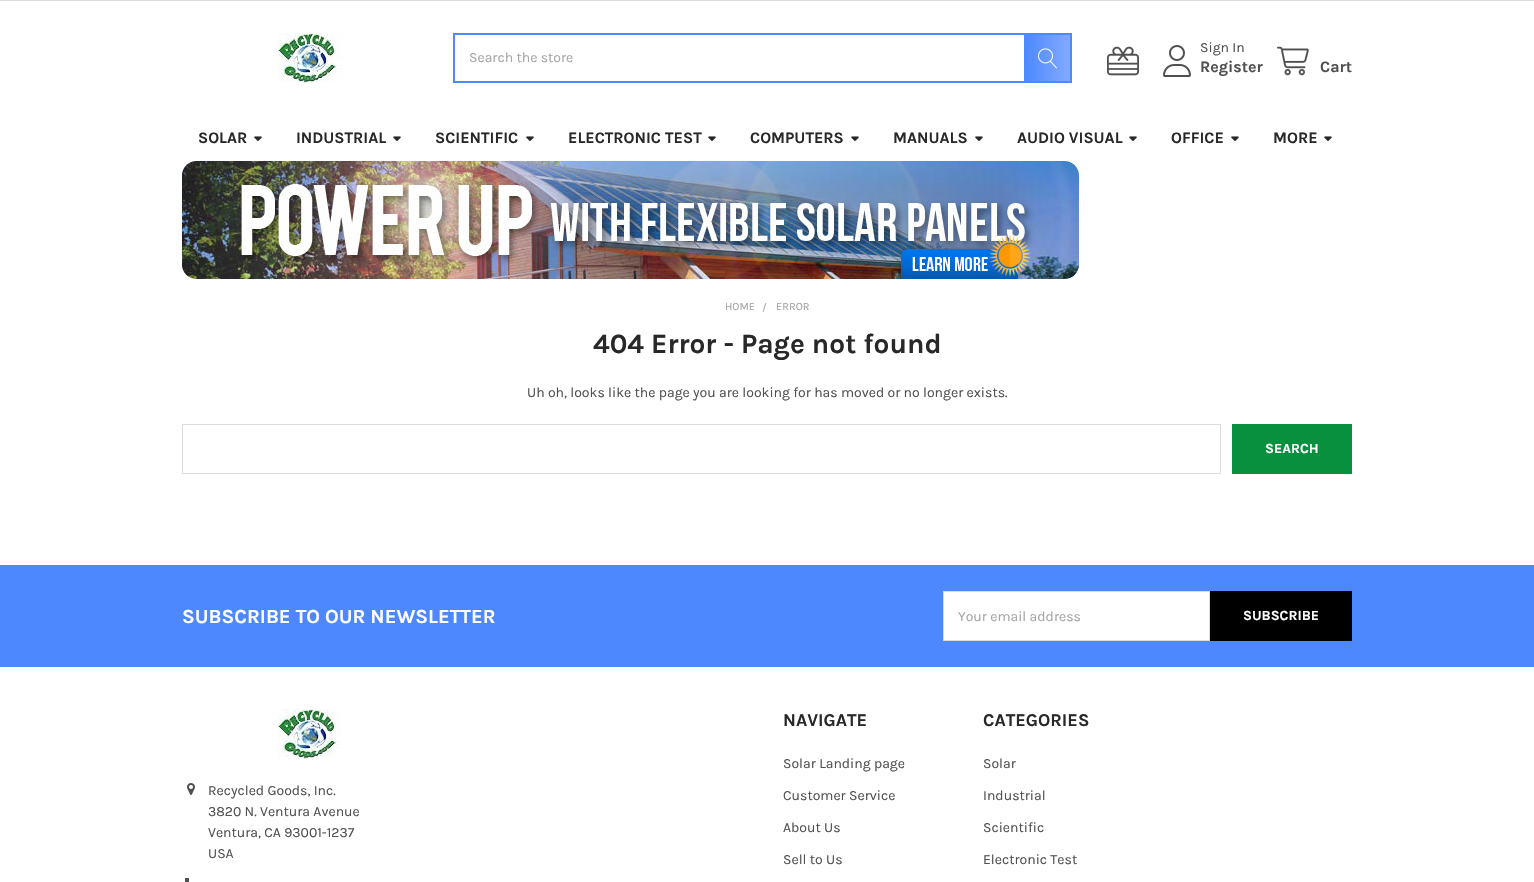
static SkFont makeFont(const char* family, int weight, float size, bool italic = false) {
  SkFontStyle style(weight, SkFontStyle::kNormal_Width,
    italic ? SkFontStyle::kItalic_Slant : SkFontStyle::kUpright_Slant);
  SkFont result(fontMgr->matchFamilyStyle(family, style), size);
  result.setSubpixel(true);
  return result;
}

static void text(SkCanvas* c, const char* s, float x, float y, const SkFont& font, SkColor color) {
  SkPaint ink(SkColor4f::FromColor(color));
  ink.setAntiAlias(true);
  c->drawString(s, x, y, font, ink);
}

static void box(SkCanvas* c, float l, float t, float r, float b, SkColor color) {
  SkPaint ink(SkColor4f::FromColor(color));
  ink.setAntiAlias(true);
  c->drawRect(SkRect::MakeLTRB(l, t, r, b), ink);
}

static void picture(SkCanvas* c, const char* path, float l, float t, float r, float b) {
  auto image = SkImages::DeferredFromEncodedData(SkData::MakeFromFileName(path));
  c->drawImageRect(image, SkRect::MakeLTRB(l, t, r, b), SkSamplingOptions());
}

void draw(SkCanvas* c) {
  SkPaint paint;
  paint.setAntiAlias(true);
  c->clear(0xffffffff);
  box(c, 0, 0, 1534, 1, 0xffdcdcdc);
  picture(c, "img_01.png", 278, 33, 342, 83);
  paint.setStyle(SkPaint::kStroke_Style);
  paint.setStrokeWidth(2);
  paint.setColor(0xff4d88ff);
  c->drawRect(SkRect::MakeLTRB(454, 34, 1071, 82), paint);
  SkFont face1 = makeFont("Karla", 400, 14);
  text(c, "Search the store", 469, 62, face1, 0xffa5a5a5);
  paint.setStyle(SkPaint::kFill_Style);
  {
    const SkColor colors[] = {0xff4d88ff, 0xb34d88ff};
    const float stops[] = {0, 1};
    const SkPoint ends[] = {{1024, 58}, {1072, 58}};
    paint.setShader(SkGradientShader::MakeLinear(ends, colors, stops, 2, SkTileMode::kClamp));
    paint.setAlpha(255);
  }
  c->drawRect(SkRect::MakeLTRB(1024, 35, 1070, 81), paint);
  picture(c, "img_02.png", 1038, 48, 1057, 69);
  picture(c, "img_03.png", 1107, 46, 1139, 76);
  picture(c, "img_04.png", 1163, 45, 1191, 77);
  text(c, "Sign In", 1200, 52, face1, 0xff505050);
  SkFont face2 = makeFont("Karla", 700, 16);
  text(c, "Register", 1200, 72, face2, 0xff505050);
  picture(c, "img_05.png", 1277, 46, 1309, 76);
  text(c, "Cart", 1320, 72, face2, 0xff505050);
  text(c, "SOLAR", 198, 143, face2, 0xff282828);
  picture(c, "img_06.png", 254, 136, 262, 141);
  text(c, "INDUSTRIAL", 296, 143, face2, 0xff282828);
  picture(c, "img_06.png", 393, 136, 401, 141);
  text(c, "SCIENTIFIC", 435, 143, face2, 0xff282828);
  picture(c, "img_06.png", 526, 136, 534, 141);
  text(c, "ELECTRONIC TEST", 568, 143, face2, 0xff282828);
  picture(c, "img_06.png", 708, 136, 716, 141);
  text(c, "COMPUTERS", 750, 143, face2, 0xff282828);
  picture(c, "img_06.png", 851, 136, 859, 141);
  text(c, "MANUALS", 893, 143, face2, 0xff282828);
  picture(c, "img_06.png", 975, 136, 983, 141);
  text(c, "AUDIO VISUAL", 1017, 143, face2, 0xff282828);
  picture(c, "img_06.png", 1129, 136, 1137, 141);
  text(c, "OFFICE", 1171, 143, face2, 0xff282828);
  picture(c, "img_06.png", 1231, 136, 1239, 141);
  text(c, "MORE", 1273, 143, face2, 0xff282828);
  picture(c, "img_06.png", 1324, 136, 1332, 141);
  picture(c, "img_07.png", 182, 161, 1079, 279);
  SkFont face3 = makeFont("Karla", 400, 11);
  text(c, "HOME", 725, 310, face3, 0xffa5a5a5);
  text(c, "/", 762, 311, face3, 0xffa5a5a5);
  text(c, "ERROR", 776, 310, face3, 0xffa5a5a5);
  SkFont face4 = makeFont("Karla", 700, 28);
  text(c, "404 Error - Page not found", 593, 353, face4, 0xff282828);
  text(c, "Uh oh, looks like the page you are looking for has moved or no longer exists.", 527, 397, face1, 0xff505050);
  paint.setStyle(SkPaint::kStroke_Style);
  paint.setStrokeWidth(1);
  paint.setShader(nullptr);
  paint.setColor(0xffdcdcdc);
  c->drawRect(SkRect::MakeLTRB(182.5f, 424.5f, 1220.5f, 473.5f), paint);
  box(c, 1232, 424, 1352, 474, 0xff09903e);
  SkFont face5 = makeFont("Karla", 700, 14);
  text(c, "SEARCH", 1265, 453, face5, 0xffffffff);
  box(c, 0, 565, 1534, 667, 0xff4d88ff);
  SkFont face6 = makeFont("Karla", 700, 20);
  text(c, "SUBSCRIBE TO OUR NEWSLETTER", 182, 623, face6, 0xffffffff);
  paint.setStyle(SkPaint::kFill_Style);
  paint.setColor(0xffffffff);
  c->drawRect(SkRect::MakeLTRB(943.5f, 591.5f, 1209.5f, 640.5f), paint);
  paint.setStyle(SkPaint::kStroke_Style);
  paint.setColor(0xffdcdcdc);
  c->drawRect(SkRect::MakeLTRB(943.5f, 591.5f, 1209.5f, 640.5f), paint);
  text(c, "Your email address", 958, 621, face1, 0xffa5a5a5);
  box(c, 1210, 591, 1352, 641, 0xff000000);
  text(c, "SUBSCRIBE", 1243, 620, face5, 0xffffffff);
  picture(c, "img_01.png", 278, 709, 342, 759);
  picture(c, "img_08.png", 187, 783, 195, 795);
  text(c, "Recycled Goods, Inc.", 208, 795, face1, 0xff505050);
  text(c, "3820 N. Ventura Avenue", 208, 816, face1, 0xff505050);
  text(c, "Ventura, CA 93001-1237", 208, 837, face1, 0xff505050);
  text(c, "USA", 208, 858, face1, 0xff505050);
  box(c, 185, 878, 189, 882, 0xff505050);
  SkFont face7 = makeFont("Karla", 700, 18);
  text(c, "NAVIGATE", 783, 726, face7, 0xff282828);
  text(c, "Solar Landing page", 783, 768, face1, 0xff505050);
  text(c, "Customer Service", 783, 800, face1, 0xff505050);
  text(c, "About Us", 783, 832, face1, 0xff505050);
  text(c, "Sell to Us", 783, 864, face1, 0xff505050);
  text(c, "CATEGORIES", 983, 726, face7, 0xff282828);
  text(c, "Solar", 983, 768, face1, 0xff505050);
  text(c, "Industrial", 983, 800, face1, 0xff505050);
  text(c, "Scientific", 983, 832, face1, 0xff505050);
  text(c, "Electronic Test", 983, 864, face1, 0xff505050);
}
